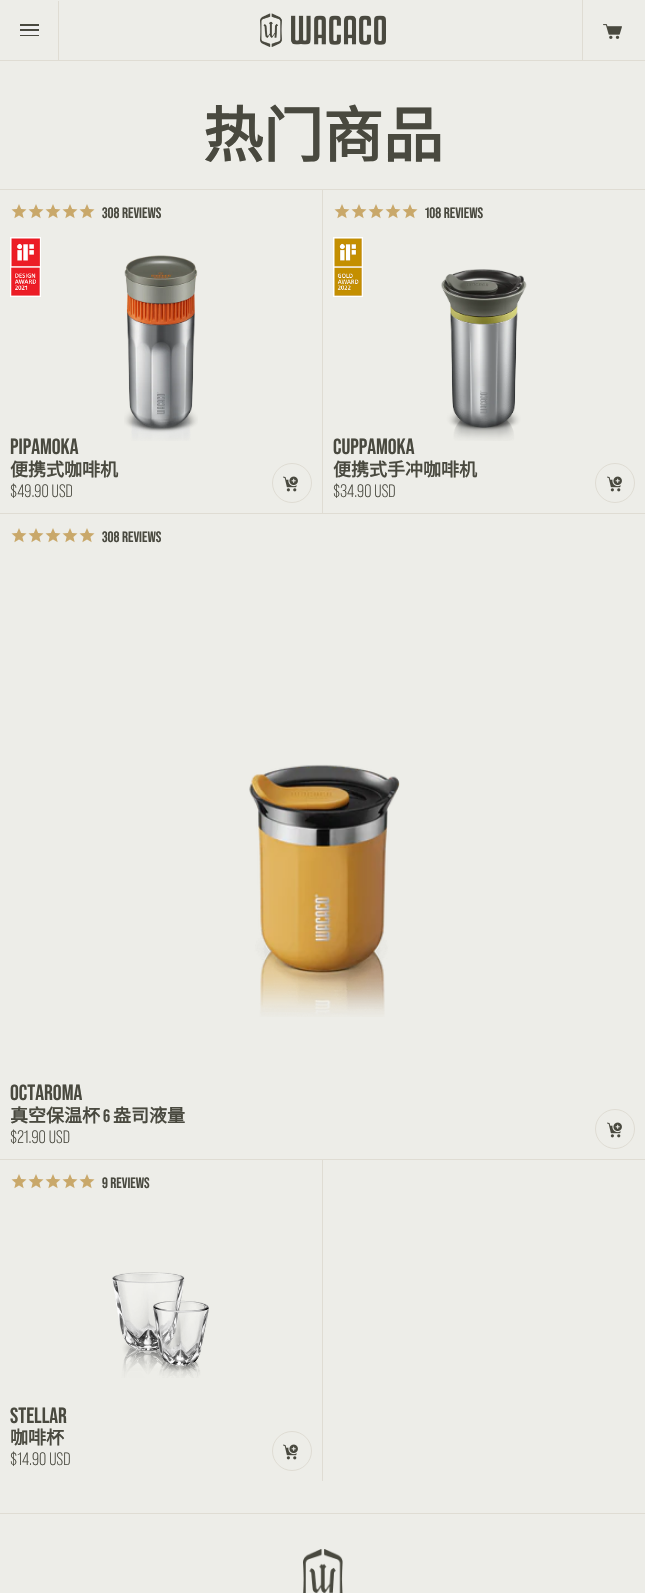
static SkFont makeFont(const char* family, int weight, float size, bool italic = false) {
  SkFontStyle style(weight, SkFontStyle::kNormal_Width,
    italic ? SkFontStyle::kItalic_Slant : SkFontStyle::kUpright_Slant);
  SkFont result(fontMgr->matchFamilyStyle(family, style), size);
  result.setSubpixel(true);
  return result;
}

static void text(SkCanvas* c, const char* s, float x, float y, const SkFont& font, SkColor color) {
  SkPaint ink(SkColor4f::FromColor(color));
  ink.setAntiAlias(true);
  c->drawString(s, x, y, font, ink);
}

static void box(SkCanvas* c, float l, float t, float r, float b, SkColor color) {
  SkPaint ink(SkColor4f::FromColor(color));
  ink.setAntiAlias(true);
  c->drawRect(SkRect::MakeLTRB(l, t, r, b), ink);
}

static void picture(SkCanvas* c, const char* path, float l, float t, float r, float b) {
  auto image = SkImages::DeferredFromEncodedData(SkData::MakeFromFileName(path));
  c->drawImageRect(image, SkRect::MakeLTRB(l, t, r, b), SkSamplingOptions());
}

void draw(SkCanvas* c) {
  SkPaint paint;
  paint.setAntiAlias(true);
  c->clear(0xffedede8);
  box(c, 0, 60, 645, 61, 0xffdfdcd3);
  box(c, 20, 26, 39, 35, 0xffefefef);
  box(c, 20, 24, 39, 26, 0xff49493f);
  box(c, 58, 1, 59, 60, 0xffdfdcd3);
  box(c, 20, 29, 39, 31, 0xff49493f);
  box(c, 20, 35, 39, 36, 0xff49493f);
  picture(c, "img_01.png", 260, 13, 386, 47);
  box(c, 582, 0, 583, 60, 0xffdfdcd3);
  picture(c, "img_02.png", 603, 24, 622, 39);
  SkFont face1 = makeFont("Noto Sans CJK SC", 700, 60);
  text(c, "热门商品", 203, 157, face1, 0xff49493f);
  box(c, 0, 189, 645, 190, 0xffdfdcd3);
  box(c, 322, 190, 323, 514, 0xffdfdcd3);
  box(c, 0, 513, 645, 514, 0xffdfdcd3);
  picture(c, "img_03.png", 11, 204, 27, 219);
  picture(c, "img_03.png", 28, 204, 44, 219);
  picture(c, "img_03.png", 45, 204, 61, 219);
  picture(c, "img_03.png", 62, 204, 78, 219);
  picture(c, "img_03.png", 79, 204, 95, 219);
  SkFont face2 = makeFont("Bebas Neue", 700, 15);
  text(c, "308 REVIEWS", 102, 218, face2, 0xff49493f);
  picture(c, "img_04.png", 10, 237, 41, 297);
  picture(c, "img_05.png", 124, 255, 198, 441);
  SkFont face3 = makeFont("Bebas Neue", 700, 22);
  text(c, "PIPAMOKA", 10, 454, face3, 0xff49493f);
  SkFont face4 = makeFont("Noto Sans CJK SC", 700, 18);
  text(c, "便携式咖啡机", 10, 476, face4, 0xff49493f);
  SkFont face5 = makeFont("Bebas Neue", 400, 18);
  text(c, "$49.90 USD", 10, 497, face5, 0xff49493f);
  paint.setStyle(SkPaint::kStroke_Style);
  paint.setStrokeWidth(1);
  paint.setColor(0xffdfdcd3);
  c->drawCircle(292, 483, 19.5f, paint);
  picture(c, "img_06.png", 283, 476, 298, 492);
  picture(c, "img_03.png", 334, 204, 350, 219);
  picture(c, "img_03.png", 351, 204, 367, 219);
  picture(c, "img_03.png", 368, 204, 384, 219);
  picture(c, "img_03.png", 385, 204, 401, 219);
  picture(c, "img_03.png", 402, 204, 418, 219);
  text(c, "108 REVIEWS", 425, 218, face2, 0xff49493f);
  picture(c, "img_07.png", 333, 237, 363, 297);
  picture(c, "img_08.png", 441, 269, 527, 441);
  text(c, "CUPPAMOKA", 333, 454, face3, 0xff49493f);
  text(c, "便携式手冲咖啡机", 333, 476, face4, 0xff49493f);
  text(c, "$34.90 USD", 333, 497, face5, 0xff49493f);
  c->drawCircle(615, 483, 19.5f, paint);
  picture(c, "img_06.png", 607, 476, 622, 492);
  box(c, 0, 1159, 645, 1160, 0xffdfdcd3);
  picture(c, "img_03.png", 11, 528, 27, 543);
  picture(c, "img_03.png", 28, 528, 44, 543);
  picture(c, "img_03.png", 45, 528, 61, 543);
  picture(c, "img_03.png", 62, 528, 78, 543);
  picture(c, "img_03.png", 79, 528, 95, 543);
  text(c, "308 REVIEWS", 102, 542, face2, 0xff49493f);
  picture(c, "img_09.png", 249, 764, 400, 1017);
  text(c, "OCTAROMA", 10, 1100, face3, 0xff49493f);
  text(c, "真空保温杯", 10, 1122, face4, 0xff49493f);
  SkFont face6 = makeFont("Bebas Neue", 700, 18);
  text(c, "6", 103, 1122, face6, 0xff49493f);
  text(c, "盎司液量", 113, 1122, face4, 0xff49493f);
  text(c, "$21.90 USD", 10, 1143, face5, 0xff49493f);
  c->drawCircle(615, 1129, 19.5f, paint);
  picture(c, "img_06.png", 607, 1122, 622, 1138);
  box(c, 322, 1160, 323, 1481, 0xffdfdcd3);
  picture(c, "img_03.png", 11, 1174, 27, 1189);
  picture(c, "img_03.png", 28, 1174, 44, 1189);
  picture(c, "img_03.png", 45, 1174, 61, 1189);
  picture(c, "img_03.png", 62, 1174, 78, 1189);
  picture(c, "img_03.png", 79, 1174, 95, 1189);
  text(c, "9 REVIEWS", 102, 1188, face2, 0xff49493f);
  picture(c, "img_10.png", 112, 1272, 209, 1378);
  text(c, "STELLAR", 10, 1423, face3, 0xff49493f);
  text(c, "咖啡杯", 10, 1444, face4, 0xff49493f);
  text(c, "$14.90 USD", 10, 1465, face5, 0xff49493f);
  c->drawCircle(292, 1451, 19.5f, paint);
  picture(c, "img_06.png", 283, 1444, 298, 1460);
  box(c, 0, 1513, 645, 1514, 0xffdfdcd3);
  picture(c, "img_11.png", 303, 1549, 343, 1593);
}
